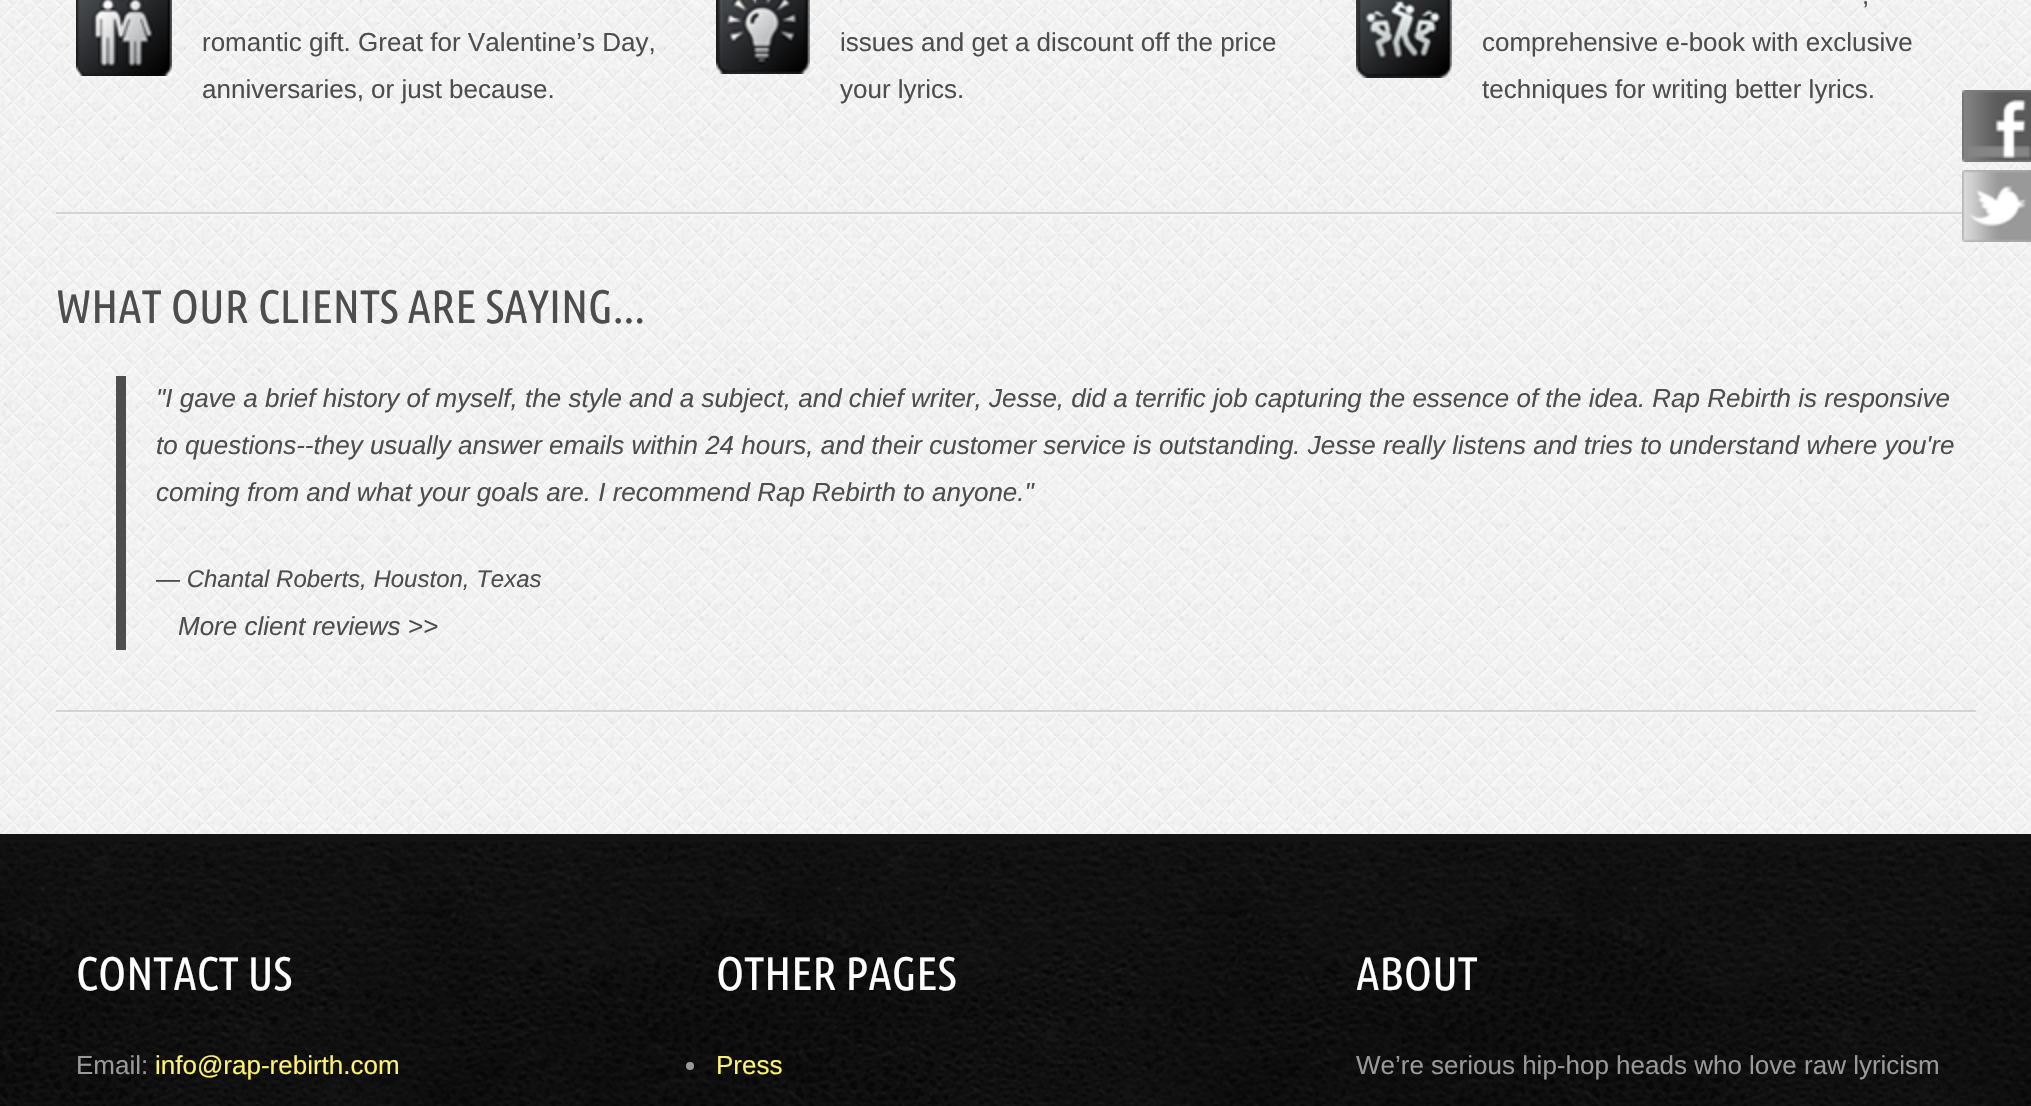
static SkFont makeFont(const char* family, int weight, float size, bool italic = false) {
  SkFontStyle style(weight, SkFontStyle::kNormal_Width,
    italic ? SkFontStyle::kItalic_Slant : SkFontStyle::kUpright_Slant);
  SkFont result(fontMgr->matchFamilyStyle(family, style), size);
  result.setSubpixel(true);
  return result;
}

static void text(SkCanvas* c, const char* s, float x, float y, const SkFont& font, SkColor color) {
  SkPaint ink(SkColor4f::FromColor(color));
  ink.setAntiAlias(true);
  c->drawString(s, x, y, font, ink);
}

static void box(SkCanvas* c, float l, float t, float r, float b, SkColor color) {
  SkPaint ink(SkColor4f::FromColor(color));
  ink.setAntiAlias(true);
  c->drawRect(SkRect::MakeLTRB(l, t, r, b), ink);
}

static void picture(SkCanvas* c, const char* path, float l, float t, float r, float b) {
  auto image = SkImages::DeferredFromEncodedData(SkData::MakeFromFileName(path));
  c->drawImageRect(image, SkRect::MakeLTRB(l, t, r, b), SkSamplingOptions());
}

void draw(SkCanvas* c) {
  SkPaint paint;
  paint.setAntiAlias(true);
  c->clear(0xffffffff);
  picture(c, "img_01.png", 0, 0, 2031, 834);
  box(c, 0, 834, 2031, 842, 0xff131313);
  picture(c, "img_02.png", 76, 0, 172, 76);
  SkFont face1 = makeFont("Liberation Sans", 400, 26);
  text(c, "romantic gift. Great for Valentine’s Day,", 202, 51, face1, 0xff4d4d4d);
  text(c, "anniversaries, or just because.", 202, 98, face1, 0xff4d4d4d);
  picture(c, "img_03.png", 716, 0, 810, 74);
  text(c, "issues and get a discount off the price", 840, 51, face1, 0xff4d4d4d);
  text(c, "your lyrics.", 840, 98, face1, 0xff4d4d4d);
  picture(c, "img_04.png", 1356, 0, 1452, 78);
  text(c, ",", 1862, 4, face1, 0xff4d4d4d);
  text(c, "comprehensive e-book with exclusive", 1482, 51, face1, 0xff4d4d4d);
  text(c, "techniques for writing better lyrics.", 1482, 98, face1, 0xff4d4d4d);
  box(c, 56, 214, 1965, 216, 0xfff5f5f5);
  box(c, 56, 212, 1965, 214, 0xffd4d4d4);
  SkFont face2 = makeFont("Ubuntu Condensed", 400, 46.75f);
  text(c, "WHAT OUR CLIENTS ARE SAYING...", 56, 323, face2, 0xff4d4d4d);
  box(c, 116, 376, 126, 650, 0xff4d4d4d);
  SkFont face3 = makeFont("Liberation Sans", 400, 26, true);
  text(c, "\"I gave a brief history of myself, the style and a subject, and chief writer, Jesse, did a terrific job capturing the essence of the idea. Rap Rebirth is responsive", 156, 407, face3, 0xff4d4d4d);
  text(c, "to questions--they usually answer emails within 24 hours, and their customer service is outstanding. Jesse really listens and tries to understand where you're", 156, 454, face3, 0xff4d4d4d);
  text(c, "coming from and what your goals are. I recommend Rap Rebirth to anyone.\"", 156, 501, face3, 0xff4d4d4d);
  SkFont face4 = makeFont("Liberation Sans", 400, 24, true);
  text(c, "— Chantal Roberts, Houston, Texas", 156, 587, face4, 0xff4d4d4d);
  text(c, "More client reviews >>", 178, 635, face3, 0xff4d4d4d);
  box(c, 56, 712, 1976, 714, 0xfff5f5f5);
  box(c, 56, 710, 1976, 712, 0xffd4d4d4);
  picture(c, "img_05.png", 0, 842, 2031, 1106);
  text(c, "CONTACT US", 76, 990, face2, 0xffffffff);
  text(c, "Email:", 76, 1074, face1, 0xff999999);
  text(c, "info@rap-rebirth.com", 155, 1074, face1, 0xfffff461);
  text(c, "OTHER PAGES", 716, 990, face2, 0xffffffff);
  paint.setColor(0xff999999);
  c->drawCircle(690, 1066, 4, paint);
  text(c, "Press", 716, 1074, face1, 0xfffff461);
  text(c, "ABOUT", 1356, 990, face2, 0xffffffff);
  text(c, "We’re serious hip-hop heads who love raw lyricism", 1356, 1074, face1, 0xff999999);
  picture(c, "img_06.png", 1962, 90, 2031, 162);
  picture(c, "img_07.png", 1962, 170, 2031, 242);
}
